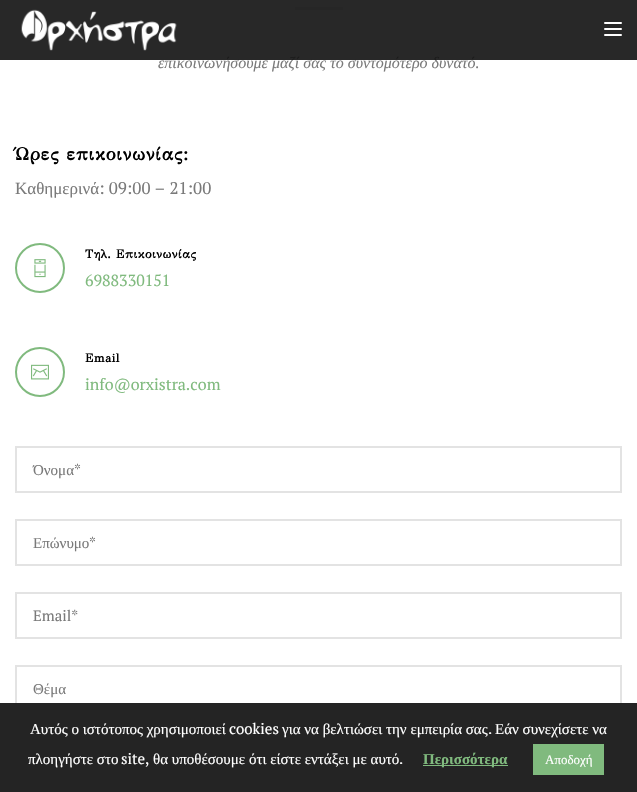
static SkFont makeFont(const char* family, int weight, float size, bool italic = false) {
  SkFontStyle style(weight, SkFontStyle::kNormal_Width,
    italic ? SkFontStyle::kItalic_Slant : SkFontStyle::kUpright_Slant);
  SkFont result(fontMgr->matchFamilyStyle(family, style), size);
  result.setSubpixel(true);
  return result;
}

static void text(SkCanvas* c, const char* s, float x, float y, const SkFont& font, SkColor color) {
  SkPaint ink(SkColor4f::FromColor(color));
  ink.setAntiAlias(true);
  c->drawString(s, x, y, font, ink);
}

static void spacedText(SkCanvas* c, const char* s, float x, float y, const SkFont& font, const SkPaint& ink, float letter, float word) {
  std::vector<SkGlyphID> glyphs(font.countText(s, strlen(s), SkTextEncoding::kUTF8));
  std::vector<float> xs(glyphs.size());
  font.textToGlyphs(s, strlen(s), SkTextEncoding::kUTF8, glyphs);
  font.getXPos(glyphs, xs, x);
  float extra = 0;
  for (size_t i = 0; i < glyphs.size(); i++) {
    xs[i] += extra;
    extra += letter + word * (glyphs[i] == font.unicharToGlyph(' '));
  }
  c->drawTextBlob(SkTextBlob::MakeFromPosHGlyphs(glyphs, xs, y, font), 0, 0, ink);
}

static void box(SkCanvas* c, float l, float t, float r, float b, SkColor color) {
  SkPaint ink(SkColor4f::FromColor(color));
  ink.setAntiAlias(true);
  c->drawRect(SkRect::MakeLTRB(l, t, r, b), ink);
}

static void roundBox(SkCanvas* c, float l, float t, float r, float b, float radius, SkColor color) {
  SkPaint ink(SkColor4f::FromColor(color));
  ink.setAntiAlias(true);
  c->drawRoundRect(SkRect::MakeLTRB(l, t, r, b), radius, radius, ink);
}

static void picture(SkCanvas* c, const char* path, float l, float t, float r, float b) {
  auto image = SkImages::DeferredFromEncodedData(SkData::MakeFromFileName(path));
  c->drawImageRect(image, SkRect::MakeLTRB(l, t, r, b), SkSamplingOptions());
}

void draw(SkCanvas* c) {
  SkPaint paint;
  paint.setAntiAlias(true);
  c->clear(0xffffffff);
  box(c, 295, 7, 343, 10, 0xffe8e8e8);
  SkFont face1 = makeFont("Liberation Serif", 400, 16, true);
  text(c, "επικοινωνήσουμε μαζί σας το συντομότερο δυνατό.", 158, 68, face1, 0xff7a7a7a);
  box(c, 0, 0, 637, 60, 0xe6111111);
  picture(c, "img_01.png", 21, 9, 177, 51);
  roundBox(c, 604, 22, 622, 24, 1, 0xffffffff);
  roundBox(c, 604, 28, 622, 30, 1, 0xffffffff);
  roundBox(c, 604, 34, 622, 36, 1, 0xffffffff);
  SkFont face2 = makeFont("GFS Didot", 700, 18);
  paint.setColor(0xff000000);
  spacedText(c, "Ώρες επικοινωνίας:", 15, 160, face2, paint, 0.9f, 0);
  SkFont face3 = makeFont("Liberation Serif", 400, 17);
  text(c, "Καθημερινά", 15, 194, face3, 0xff7a7a7a);
  SkFont face4 = makeFont("PT Serif", 400, 17);
  text(c, ": 09:00 – 21:00", 99, 194, face4, 0xff7a7a7a);
  paint.setStyle(SkPaint::kStroke_Style);
  paint.setStrokeWidth(2);
  paint.setColor(0xff80ba7e);
  c->drawCircle(40, 268, 24, paint);
  picture(c, "img_02.png", 34, 259, 46, 278);
  SkFont face5 = makeFont("GFS Didot", 700, 12);
  paint.setStyle(SkPaint::kFill_Style);
  paint.setColor(0xff000000);
  spacedText(c, "Τηλ. Επικοινωνίας", 85, 258, face5, paint, 0.6f, 0);
  SkFont face6 = makeFont("PT Serif", 400, 16);
  text(c, "6988330151", 85, 286, face6, 0xff80ba7e);
  paint.setStyle(SkPaint::kStroke_Style);
  paint.setColor(0xff80ba7e);
  c->drawCircle(40, 372, 24, paint);
  picture(c, "img_03.png", 31, 364, 49, 380);
  paint.setStyle(SkPaint::kFill_Style);
  paint.setColor(0xff000000);
  spacedText(c, "Email", 85, 362, face5, paint, 0.6f, 0);
  text(c, "info@orxistra.com", 85, 390, face6, 0xff80ba7e);
  paint.setStyle(SkPaint::kStroke_Style);
  paint.setColor(0xffe3e3e3);
  c->drawRect(SkRect::MakeLTRB(16, 447, 621, 492), paint);
  SkFont face7 = makeFont("Liberation Serif", 400, 15);
  text(c, "Όνομα", 33, 475, face7, 0xff7a7a7a);
  SkFont face8 = makeFont("PT Serif", 400, 15);
  text(c, "*", 74, 475, face8, 0xff7a7a7a);
  c->drawRect(SkRect::MakeLTRB(16, 520, 621, 565), paint);
  text(c, "Επώνυμο", 33, 548, face7, 0xff7a7a7a);
  text(c, "*", 89, 548, face8, 0xff7a7a7a);
  c->drawRect(SkRect::MakeLTRB(16, 593, 621, 638), paint);
  text(c, "Email*", 33, 621, face8, 0xff7a7a7a);
  c->drawRect(SkRect::MakeLTRB(16, 666, 621, 711), paint);
  text(c, "Θέμα", 33, 694, face7, 0xff7a7a7a);
  box(c, 0, 703, 637, 792, 0xff242424);
  text(c, "Αυτός ο ιστότοπος χρησιμοποιεί", 30, 734, face7, 0xffffffff);
  text(c, "cookies", 229, 734, face8, 0xffffffff);
  text(c, "για να βελτιώσει την εμπειρία σας", 282, 734, face7, 0xffffffff);
  text(c, ".", 488, 734, face8, 0xffffffff);
  text(c, "Εάν συνεχίσετε να", 495, 734, face7, 0xffffffff);
  text(c, "πλοηγήστε στο", 28, 764, face7, 0xffffffff);
  text(c, "site,", 121, 764, face8, 0xffffffff);
  text(c, "θα υποθέσουμε ότι είστε εντάξει με αυτό", 153, 764, face7, 0xffffffff);
  text(c, ".", 399, 764, face8, 0xffffffff);
  box(c, 423, 765, 508, 766, 0xff80ba7e);
  SkFont face9 = makeFont("Liberation Serif", 700, 15);
  text(c, "Περισσότερα", 423, 764, face9, 0xff80ba7e);
  box(c, 533, 744, 604, 775, 0xff80ba7e);
  SkFont face10 = makeFont("Liberation Serif", 400, 13);
  text(c, "Αποδοχή", 545, 764, face10, 0xffffffff);
}
